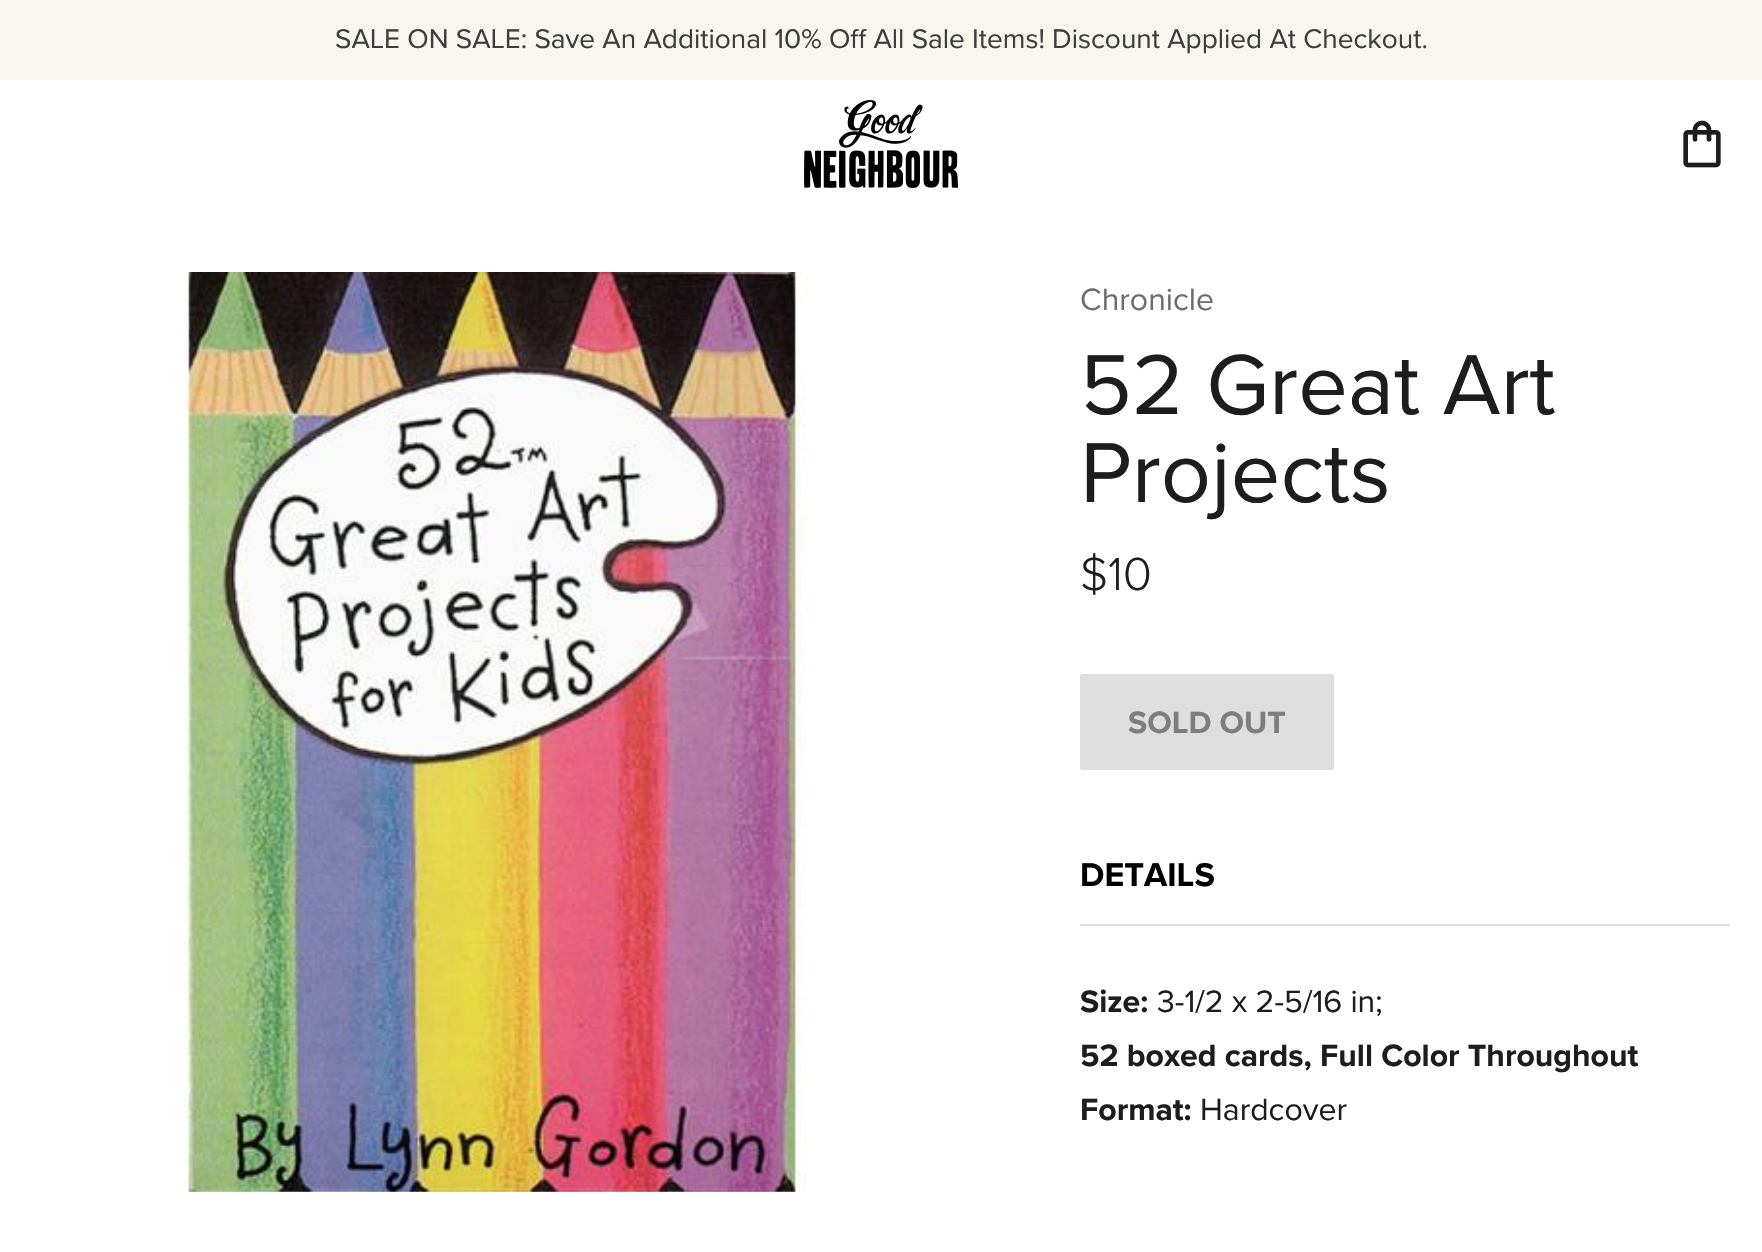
static SkFont makeFont(const char* family, int weight, float size, bool italic = false) {
  SkFontStyle style(weight, SkFontStyle::kNormal_Width,
    italic ? SkFontStyle::kItalic_Slant : SkFontStyle::kUpright_Slant);
  SkFont result(fontMgr->matchFamilyStyle(family, style), size);
  result.setSubpixel(true);
  return result;
}

static void text(SkCanvas* c, const char* s, float x, float y, const SkFont& font, SkColor color) {
  SkPaint ink(SkColor4f::FromColor(color));
  ink.setAntiAlias(true);
  c->drawString(s, x, y, font, ink);
}

static void box(SkCanvas* c, float l, float t, float r, float b, SkColor color) {
  SkPaint ink(SkColor4f::FromColor(color));
  ink.setAntiAlias(true);
  c->drawRect(SkRect::MakeLTRB(l, t, r, b), ink);
}

static void roundBox(SkCanvas* c, float l, float t, float r, float b, float radius, SkColor color) {
  SkPaint ink(SkColor4f::FromColor(color));
  ink.setAntiAlias(true);
  c->drawRoundRect(SkRect::MakeLTRB(l, t, r, b), radius, radius, ink);
}

static void picture(SkCanvas* c, const char* path, float l, float t, float r, float b) {
  auto image = SkImages::DeferredFromEncodedData(SkData::MakeFromFileName(path));
  c->drawImageRect(image, SkRect::MakeLTRB(l, t, r, b), SkSamplingOptions());
}

void draw(SkCanvas* c) {
  SkPaint paint;
  paint.setAntiAlias(true);
  c->clear(0xffffffff);
  box(c, 0, 0, 1762, 80, 0xfff9f5ef);
  SkFont face1 = makeFont("Proxima Nova", 400, 28);
  text(c, "SALE ON SALE: Save An Additional 10% Off All Sale Items! Discount Applied At Checkout.", 335, 48, face1, 0xff3d3d3d);
  picture(c, "img_01.png", 804, 100, 958, 188);
  picture(c, "img_02.png", 1683, 120, 1721, 168);
  picture(c, "img_03.png", 185, 272, 808, 1192);
  SkFont face2 = makeFont("Proxima Nova", 400, 32);
  text(c, "Chronicle", 1080, 310, face2, 0xff6d6d6d);
  SkFont face3 = makeFont("Proxima Nova", 400, 88);
  text(c, "52 Great Art", 1080, 414, face3, 0xff1d1d1d);
  text(c, "Projects", 1080, 502, face3, 0xff1d1d1d);
  SkFont face4 = makeFont("Proxima Nova", 300, 48);
  text(c, "$10", 1080, 590, face4, 0xff1d1d1d);
  roundBox(c, 1080, 674, 1334, 770, 2, 0xffdedede);
  SkFont face5 = makeFont("Proxima Nova", 700, 32);
  text(c, "SOLD OUT", 1128, 733, face5, 0xff7d7d7d);
  box(c, 1080, 924, 1730, 926, 0xffdedede);
  SkFont face6 = makeFont("Proxima Nova", 700, 34);
  text(c, "DETAILS", 1080, 886, face6, 0xff000000);
  text(c, "Size:", 1080, 1012, face5, 0xff1d1d1d);
  text(c, "3-1/2 x 2-5/16 in;", 1157, 1012, face2, 0xff1d1d1d);
  text(c, "52 boxed cards, Full Color Throughout", 1080, 1066, face5, 0xff1d1d1d);
  text(c, "Format:", 1080, 1120, face5, 0xff1d1d1d);
  text(c, "Hardcover", 1200, 1120, face2, 0xff1d1d1d);
}
